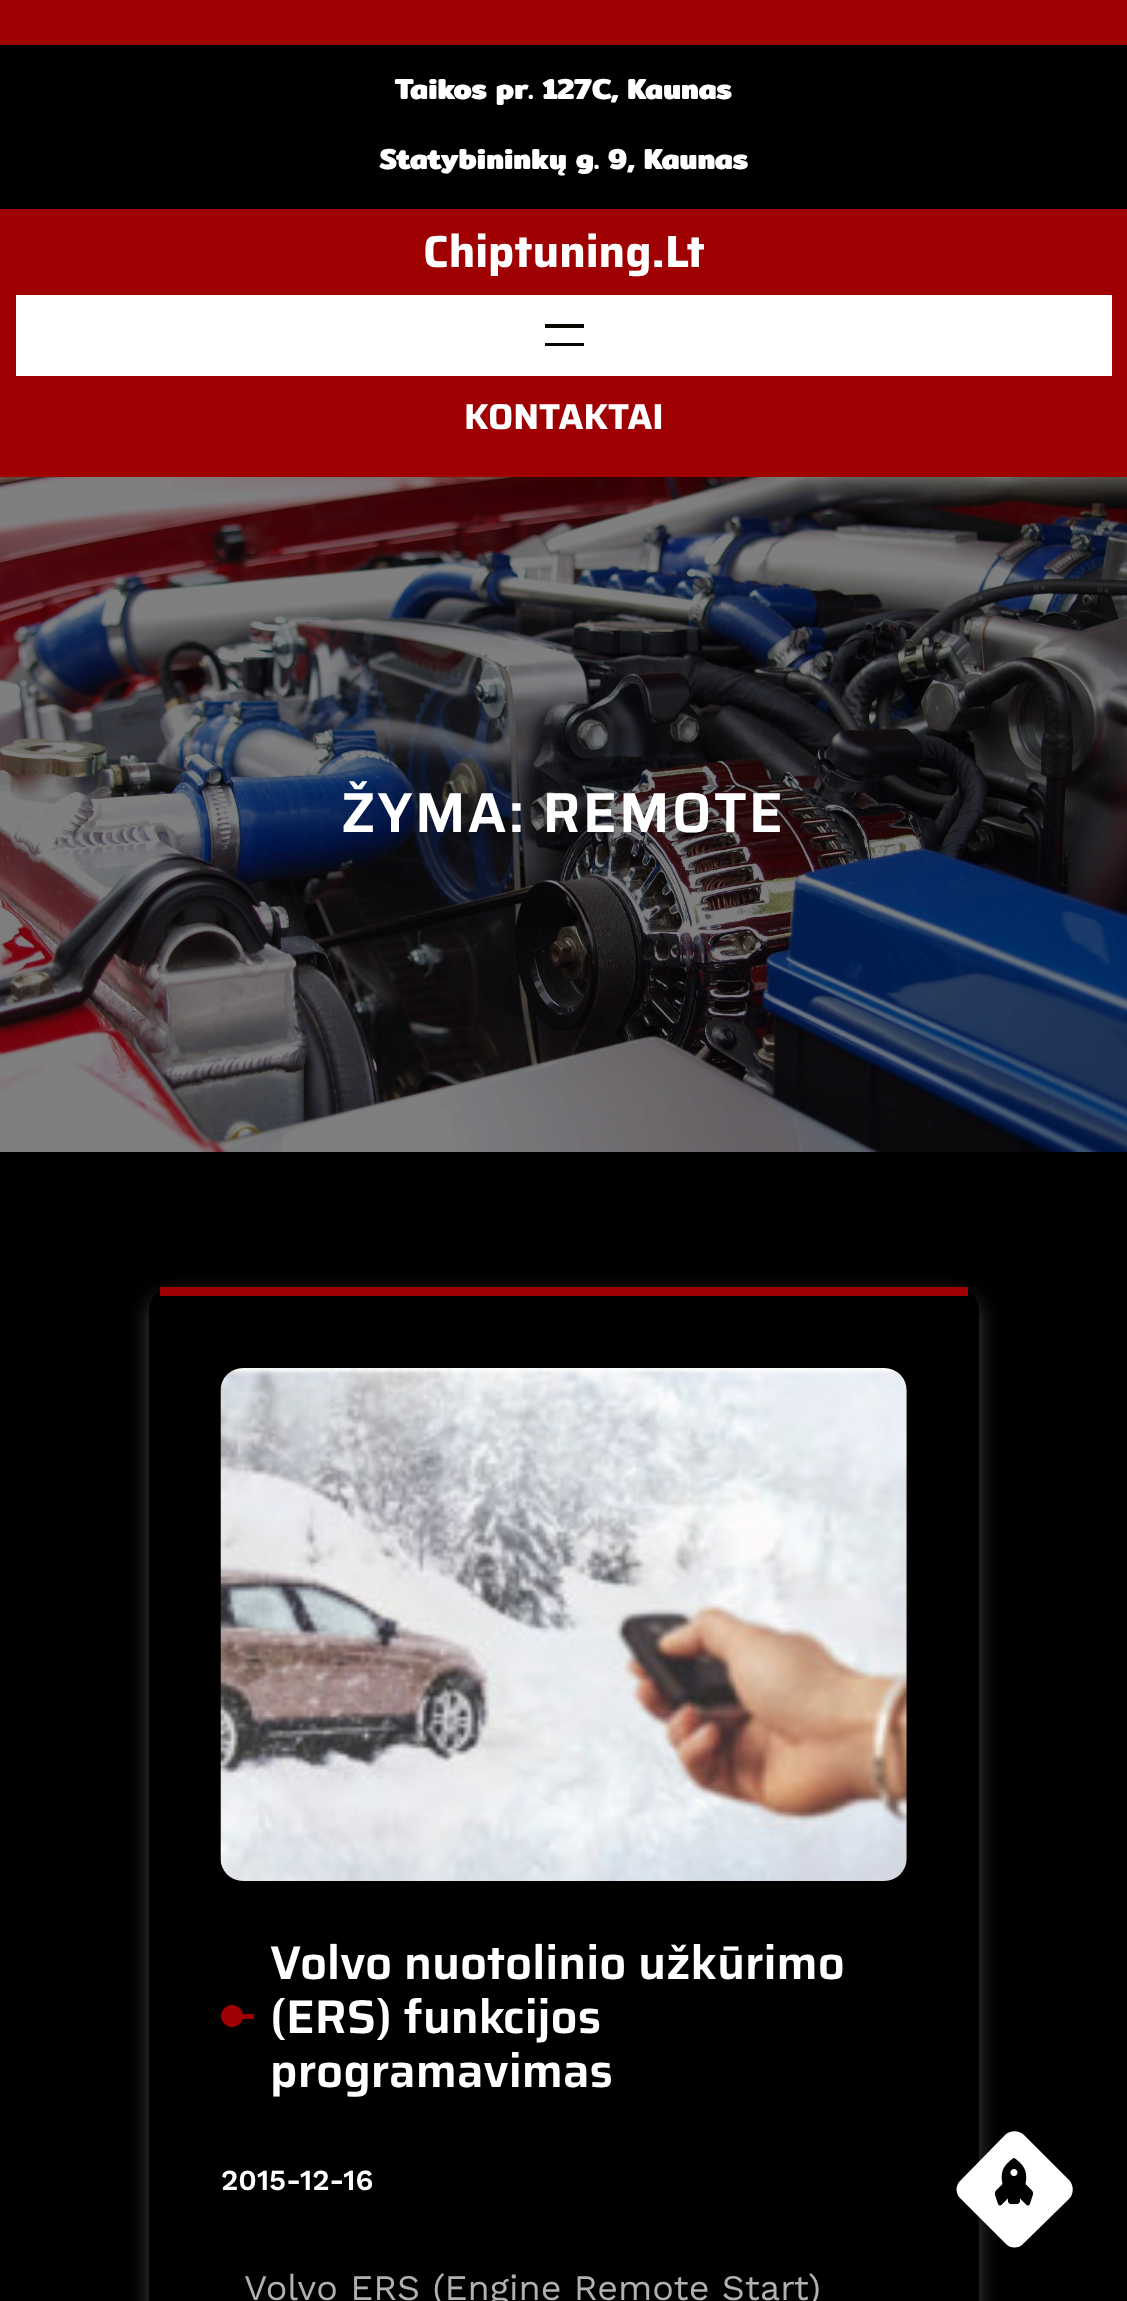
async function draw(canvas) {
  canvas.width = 1127
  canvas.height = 2301
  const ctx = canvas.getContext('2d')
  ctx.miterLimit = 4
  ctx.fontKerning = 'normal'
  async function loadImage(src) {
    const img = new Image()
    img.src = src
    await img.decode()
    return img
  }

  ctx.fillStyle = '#000'
  ctx.fillRect(0, 0, 1127, 2301)
  ctx.fillStyle = '#9f0102'
  ctx.fillRect(0, 0, 1127, 45)
  ctx.font = 'bold 29.25px Mitr'
  ctx.fillStyle = '#fff'
  ctx.fillText('Taikos pr. 127C, Kaunas', 395, 99)
  ctx.fillText('Statybininkų g. 9, Kaunas', 379, 169)
  ctx.fillStyle = '#9f0102'
  ctx.fillRect(0, 209, 1127, 16)
  ctx.fillRect(0, 225, 1127, 252)
  ctx.font = 'bold 45px Saira'
  ctx.fillStyle = '#fff'
  ctx.fillText('Chiptuning.Lt', 423, 267)
  ctx.fillRect(16, 295, 1096, 81)
  ctx.fillStyle = '#060600'
  ctx.fillRect(545, 324, 39, 4)
  ctx.fillRect(545, 343, 39, 3)
  ctx.font = 'bold 36px Saira'
  ctx.fillStyle = '#fff'
  ctx.fillText('KONTAKTAI', 464, 429)
  ctx.drawImage(await loadImage('image0.png'), 0, 477, 1127, 675)
  ctx.letterSpacing = '2.25px'
  ctx.font = '600 56.25px Saira'
  ctx.fillText('ŽYMA: REMOTE', 341, 832)
  ctx.fillStyle = '#3f4041'
  ctx.filter = 'blur(10px)'
  ctx.beginPath()
  ctx.roundRect(149, 1296, 830, 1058, 23)
  ctx.fill()
  ctx.filter = 'none'
  ctx.fillStyle = '#000'
  ctx.beginPath()
  ctx.roundRect(149, 1287, 830, 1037, 23)
  ctx.fill()
  ctx.fillStyle = '#9f0102'
  ctx.fillRect(160, 1287, 808, 9)
  ctx.drawImage(await loadImage('image1.png'), 220, 1368, 687, 513)
  ctx.fillRect(221, 2014, 33, 5)
  ctx.beginPath()
  ctx.arc(232, 2016, 11, 0, 2 * Math.PI)
  ctx.fill()
  ctx.letterSpacing = '0px'
  ctx.font = '600 47.25px Saira'
  ctx.fillStyle = '#fff'
  ctx.fillText('Volvo nuotolinio užkūrimo', 270, 1979)
  ctx.fillText('(ERS) funkcijos', 270, 2033)
  ctx.fillText('programavimas', 270, 2087)
  ctx.font = '600 29.25px Work Sans'
  ctx.fillText('2015-12-16', 221, 2190)
  ctx.font = '36px Work Sans'
  ctx.fillStyle = '#b3b0b0'
  ctx.fillText('Volvo ERS (Engine Remote Start)', 244, 2300)
  ctx.fillStyle = '#fff'
  ctx.beginPath()
  ctx.moveTo(961, 2180)
  ctx.lineTo(1005, 2135)
  ctx.bezierCurveTo(1010, 2130, 1019, 2130, 1024, 2135)
  ctx.lineTo(1069, 2180)
  ctx.bezierCurveTo(1074, 2185, 1074, 2194, 1069, 2199)
  ctx.lineTo(1024, 2243)
  ctx.bezierCurveTo(1019, 2249, 1010, 2249, 1005, 2243)
  ctx.lineTo(961, 2199)
  ctx.bezierCurveTo(955, 2194, 955, 2185, 961, 2180)
  ctx.closePath()
  ctx.fill()
  ctx.drawImage(await loadImage('image2.png'), 994, 2158, 40, 48)
}

draw(document.querySelector('canvas'))
